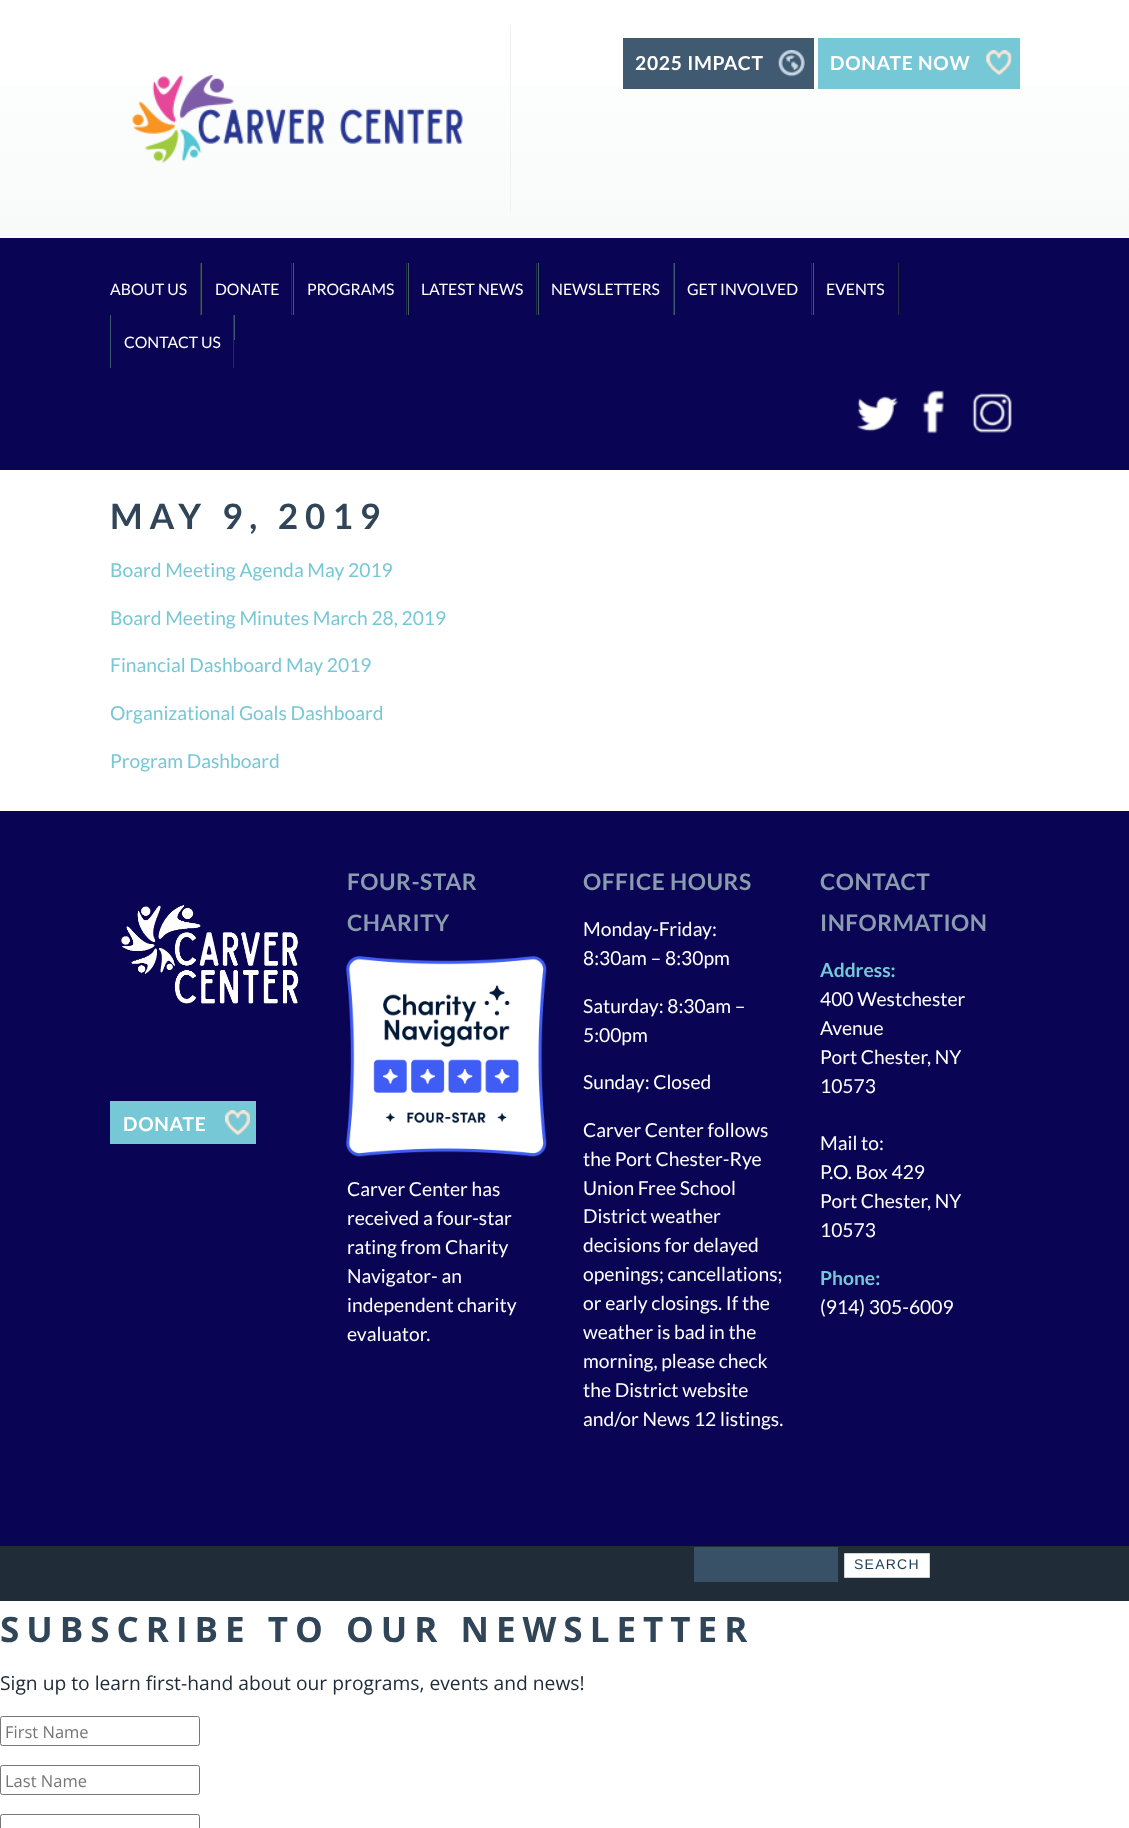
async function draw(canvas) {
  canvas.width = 1129
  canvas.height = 1828
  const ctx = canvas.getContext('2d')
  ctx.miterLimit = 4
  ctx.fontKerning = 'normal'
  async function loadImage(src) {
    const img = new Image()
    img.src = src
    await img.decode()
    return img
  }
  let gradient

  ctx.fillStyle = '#fff'
  ctx.fillRect(0, 0, 1129, 1828)
  gradient = ctx.createLinearGradient(565, 0, 565, 238)
  gradient.addColorStop(0, '#fff')
  gradient.addColorStop(1, '#f8fafa')
  ctx.fillStyle = gradient
  ctx.fillRect(0, 85, 1129, 153)
  ctx.fillStyle = '#f1f1f1'
  ctx.fillRect(510, 25, 1, 188)
  ctx.drawImage(await loadImage('image0.png'), 132, 74, 331, 89)
  ctx.fillStyle = '#405a72'
  ctx.fillRect(623, 38, 191, 51)
  ctx.drawImage(await loadImage('image1.png'), 778, 50, 27, 27)
  ctx.letterSpacing = '0.75px'
  ctx.font = 'bold 19.25px Lato'
  ctx.fillStyle = '#fff'
  ctx.fillText('2025 IMPACT', 635, 70)
  ctx.fillStyle = '#77c8d6'
  ctx.fillRect(818, 38, 202, 51)
  ctx.drawImage(await loadImage('image2.png'), 986, 50, 26, 25)
  ctx.fillStyle = '#fff'
  ctx.fillText('DONATE NOW', 830, 70)
  ctx.fillStyle = '#090554'
  ctx.fillRect(0, 238, 1129, 232)
  ctx.fillStyle = '#23313e'
  ctx.fillRect(200, 263, 1, 52)
  ctx.letterSpacing = '0px'
  ctx.font = '15.75px Lato'
  ctx.fillStyle = '#fff'
  ctx.fillText('ABOUT US', 110, 295)
  ctx.fillStyle = '#23313e'
  ctx.fillRect(291, 263, 1, 52)
  ctx.fillStyle = '#405a72'
  ctx.fillRect(201, 263, 1, 52)
  ctx.fillStyle = '#fff'
  ctx.fillText('DONATE', 215, 295)
  ctx.fillStyle = '#23313e'
  ctx.fillRect(406, 263, 1, 52)
  ctx.fillStyle = '#405a72'
  ctx.fillRect(293, 263, 1, 52)
  ctx.fillStyle = '#fff'
  ctx.fillText('PROGRAMS', 307, 295)
  ctx.fillStyle = '#23313e'
  ctx.fillRect(536, 263, 1, 52)
  ctx.fillStyle = '#405a72'
  ctx.fillRect(408, 263, 1, 52)
  ctx.fillStyle = '#fff'
  ctx.fillText('LATEST NEWS', 421, 295)
  ctx.fillStyle = '#23313e'
  ctx.fillRect(673, 263, 1, 52)
  ctx.fillStyle = '#405a72'
  ctx.fillRect(538, 263, 1, 52)
  ctx.fillStyle = '#fff'
  ctx.fillText('NEWSLETTERS', 551, 295)
  ctx.fillStyle = '#23313e'
  ctx.fillRect(811, 263, 1, 52)
  ctx.fillStyle = '#405a72'
  ctx.fillRect(674, 263, 1, 52)
  ctx.fillStyle = '#fff'
  ctx.fillText('GET INVOLVED', 687, 295)
  ctx.fillStyle = '#23313e'
  ctx.fillRect(898, 263, 1, 52)
  ctx.fillStyle = '#405a72'
  ctx.fillRect(813, 263, 1, 52)
  ctx.fillStyle = '#fff'
  ctx.fillText('EVENTS', 826, 295)
  ctx.fillStyle = '#405a72'
  ctx.fillRect(234, 315, 1, 25)
  ctx.fillStyle = '#23313e'
  ctx.fillRect(233, 315, 1, 53)
  ctx.fillStyle = '#405a72'
  ctx.fillRect(110, 315, 1, 53)
  ctx.fillStyle = '#fff'
  ctx.fillText('CONTACT US', 124, 348)
  ctx.drawImage(await loadImage('image3.png'), 857, 396, 41, 36)
  ctx.drawImage(await loadImage('image4.png'), 922, 390, 22, 44)
  ctx.drawImage(await loadImage('image5.png'), 972, 393, 40, 40)
  ctx.letterSpacing = '7px'
  ctx.font = 'bold 35px Lato'
  ctx.fillStyle = '#314558'
  ctx.fillText('MAY 9, 2019', 110, 529)
  ctx.letterSpacing = '0px'
  ctx.font = '19.25px Lato'
  ctx.fillStyle = '#77c8d6'
  ctx.fillText('Board Meeting Agenda May 2019', 110, 577)
  ctx.fillText('Board Meeting Minutes March 28, 2019', 110, 625)
  ctx.fillText('Financial Dashboard May 2019', 110, 672)
  ctx.fillText('Organizational Goals Dashboard', 110, 720)
  ctx.fillText('Program Dashboard', 110, 768)
  ctx.fillStyle = '#090554'
  ctx.fillRect(0, 811, 1129, 735)
  ctx.drawImage(await loadImage('image6.png'), 121, 905, 178, 99)
  ctx.fillStyle = '#77c8d6'
  ctx.fillRect(110, 1101, 146, 43)
  ctx.letterSpacing = '0.75px'
  ctx.font = 'bold 19.25px Lato'
  ctx.fillStyle = '#fff'
  ctx.fillText('DONATE', 123, 1131)
  ctx.drawImage(await loadImage('image7.png'), 225, 1110, 25, 25)
  ctx.letterSpacing = '0.5px'
  ctx.font = 'bold 22.75px Lato'
  ctx.fillStyle = '#8a9cae'
  ctx.fillText('FOUR-STAR', 347, 890)
  ctx.fillText('CHARITY', 347, 931)
  ctx.drawImage(await loadImage('image8.png'), 346, 956, 201, 201)
  ctx.letterSpacing = '0px'
  ctx.font = '19.25px Lato'
  ctx.fillStyle = '#fff'
  ctx.fillText('Carver Center has', 347, 1196)
  ctx.fillText('received a four-star', 347, 1225)
  ctx.fillText('rating from Charity', 347, 1254)
  ctx.fillText('Navigator- an', 347, 1283)
  ctx.fillText('independent charity', 347, 1312)
  ctx.fillText('evaluator.', 347, 1341)
  ctx.letterSpacing = '0.5px'
  ctx.font = 'bold 22.75px Lato'
  ctx.fillStyle = '#8a9cae'
  ctx.fillText('OFFICE HOURS', 583, 890)
  ctx.letterSpacing = '0px'
  ctx.font = '19.25px Lato'
  ctx.fillStyle = '#fff'
  ctx.fillText('Monday-Friday:', 583, 936)
  ctx.fillText('8:30am – 8:30pm', 583, 965)
  ctx.fillText('Saturday: 8:30am –', 583, 1013)
  ctx.fillText('5:00pm', 583, 1042)
  ctx.fillText('Sunday: Closed', 583, 1089)
  ctx.fillText('Carver Center follows', 583, 1137)
  ctx.fillText('the Port Chester-Rye', 583, 1166)
  ctx.fillText('Union Free School', 583, 1195)
  ctx.fillText('District weather', 583, 1223)
  ctx.fillText('decisions for delayed', 583, 1252)
  ctx.fillText('openings; cancellations;', 583, 1281)
  ctx.fillText('or early closings. If the', 583, 1310)
  ctx.fillText('weather is bad in the', 583, 1339)
  ctx.fillText('morning, please check', 583, 1368)
  ctx.fillText('the District website', 583, 1397)
  ctx.fillText('and/or News 12 listings.', 583, 1426)
  ctx.letterSpacing = '0.5px'
  ctx.font = 'bold 22.75px Lato'
  ctx.fillStyle = '#8a9cae'
  ctx.fillText('CONTACT', 820, 890)
  ctx.fillText('INFORMATION', 820, 931)
  ctx.letterSpacing = '0px'
  ctx.font = 'bold 19.25px Lato'
  ctx.fillStyle = '#77c8d6'
  ctx.fillText('Address:', 820, 977)
  ctx.font = '19.25px Lato'
  ctx.fillStyle = '#fff'
  ctx.fillText('400 Westchester', 820, 1006)
  ctx.fillText('Avenue', 820, 1035)
  ctx.fillText('Port Chester, NY', 820, 1064)
  ctx.fillText('10573', 820, 1093)
  ctx.fillText('Mail to:', 820, 1150)
  ctx.fillText('P.O. Box 429', 820, 1179)
  ctx.fillText('Port Chester, NY', 820, 1208)
  ctx.fillText('10573', 820, 1237)
  ctx.font = 'bold 19.25px Lato'
  ctx.fillStyle = '#77c8d6'
  ctx.fillText('Phone:', 820, 1285)
  ctx.font = '19.25px Lato'
  ctx.fillStyle = '#fff'
  ctx.fillText('(914) 305-6009', 820, 1314)
  ctx.fillStyle = '#202d39'
  ctx.fillRect(0, 1546, 1129, 55)
  ctx.fillStyle = '#395167'
  ctx.fillRect(694, 1547, 144, 35)
  ctx.fillStyle = '#fff'
  ctx.beginPath()
  ctx.rect(844.5, 1553.5, 85, 24)
  ctx.fill()
  ctx.strokeStyle = '#ccd5dc'
  ctx.stroke()
  ctx.letterSpacing = '1.25px'
  ctx.font = '14px Liberation Sans'
  ctx.fillStyle = '#1a3b54'
  ctx.fillText('SEARCH', 854, 1569)
  ctx.letterSpacing = '7px'
  ctx.font = 'bold 35px Open Sans'
  ctx.fillStyle = '#314558'
  ctx.fillText('SUBSCRIBE TO OUR NEWSLETTER', 0, 1642)
  ctx.letterSpacing = '0px'
  ctx.font = '19.25px Open Sans'
  ctx.fillStyle = '#202d39'
  ctx.fillText('Sign up to learn first-hand about our programs, events and news!', 0, 1690)
  ctx.beginPath()
  ctx.roundRect(0.5, 1716.5, 199, 29, 2)
  ctx.strokeStyle = '#767676'
  ctx.stroke()
  ctx.font = '16.5px Open Sans'
  ctx.fillStyle = '#757575'
  ctx.fillText('First Name', 5, 1738)
  ctx.beginPath()
  ctx.roundRect(0.5, 1765.5, 199, 29, 2)
  ctx.stroke()
  ctx.fillText('Last Name', 5, 1787)
  ctx.beginPath()
  ctx.roundRect(0.5, 1814.5, 199, 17, 2)
  ctx.stroke()
}

draw(document.querySelector('canvas'))
